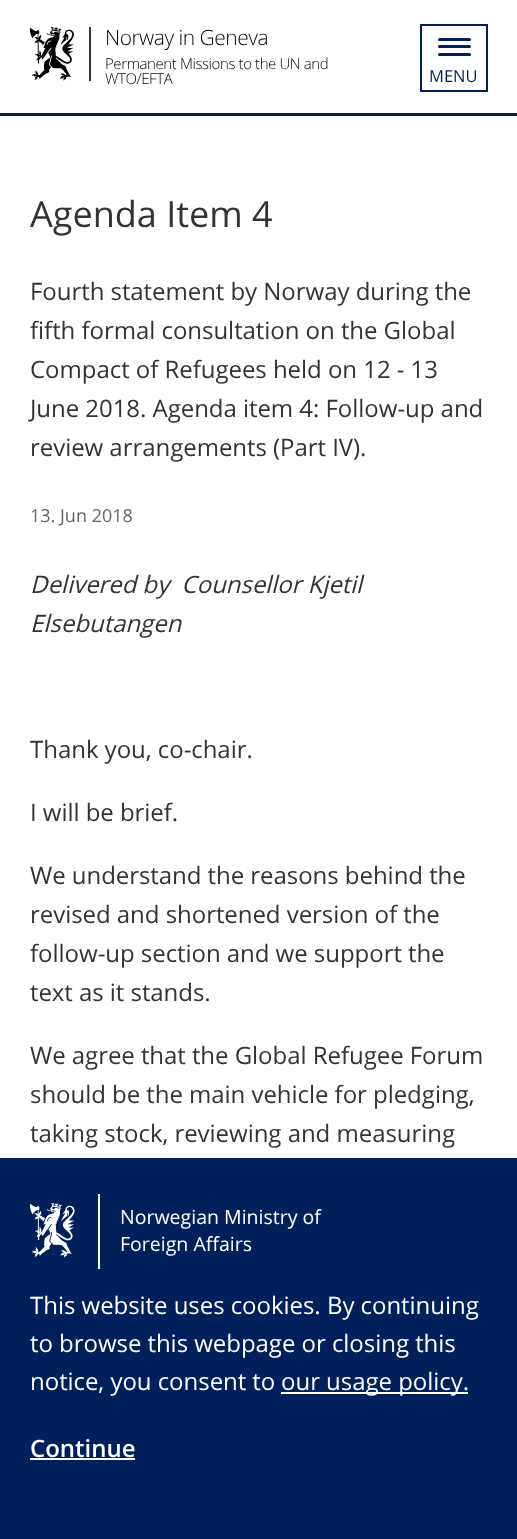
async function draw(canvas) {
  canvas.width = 517
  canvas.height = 1539
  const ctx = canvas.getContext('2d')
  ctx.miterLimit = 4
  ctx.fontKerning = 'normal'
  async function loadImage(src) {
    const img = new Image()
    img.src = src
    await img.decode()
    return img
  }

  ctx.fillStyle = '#fff'
  ctx.fillRect(0, 0, 517, 1539)
  ctx.drawImage(await loadImage('image0.png'), 30, 27, 44, 54)
  ctx.fillStyle = '#333'
  ctx.fillRect(89, 27, 2, 54)
  ctx.letterSpacing = '-0.5px'
  ctx.font = '300 21px Open Sans'
  ctx.fillStyle = '#000'
  ctx.fillText('Norway in Geneva', 105, 45)
  ctx.letterSpacing = '-0.4px'
  ctx.font = '300 15px Open Sans'
  ctx.fillText('Permanent Missions to the UN and', 105, 69)
  ctx.fillText('WTO/EFTA', 105, 84)
  ctx.strokeStyle = '#00205b'
  ctx.lineWidth = 2
  ctx.strokeRect(421, 25, 66, 66)
  ctx.fillStyle = '#00205b'
  ctx.beginPath()
  ctx.roundRect(438, 38, 33, 3, 1.5)
  ctx.fill()
  ctx.beginPath()
  ctx.roundRect(438, 45, 33, 3, 1.5)
  ctx.fill()
  ctx.beginPath()
  ctx.roundRect(438, 53, 33, 3, 1.5)
  ctx.fill()
  ctx.letterSpacing = '0px'
  ctx.font = '16.5px Open Sans'
  ctx.fillText('MENU', 429, 82)
  ctx.fillRect(0, 113, 517, 3)
  ctx.font = '36px Open Sans'
  ctx.fillStyle = '#333'
  ctx.fillText('Agenda Item 4', 30, 227)
  ctx.letterSpacing = '-0.05px'
  ctx.font = '24px Open Sans'
  ctx.fillText('Fourth statement by Norway during the', 30, 300)
  ctx.fillText('fifth formal consultation on the Global', 30, 339)
  ctx.fillText('Compact of Refugees held on 12 - 13', 30, 378)
  ctx.fillText('June 2018. Agenda item 4: Follow-up and', 30, 417)
  ctx.fillText('review arrangements (Part IV).', 30, 456)
  ctx.letterSpacing = '0px'
  ctx.font = '18px Open Sans'
  ctx.fillStyle = '#656565'
  ctx.fillText('13. Jun 2018', 30, 522)
  ctx.letterSpacing = '-0.05px'
  ctx.font = 'italic 24px Open Sans'
  ctx.fillStyle = '#333'
  ctx.fillText('Delivered by  Counsellor Kjetil', 30, 593)
  ctx.fillText('Elsebutangen', 30, 632)
  ctx.font = '24px Open Sans'
  ctx.fillText('Thank you, co-chair.', 30, 758)
  ctx.fillText('I will be brief.', 30, 821)
  ctx.fillText('We understand the reasons behind the', 30, 884)
  ctx.fillText('revised and shortened version of the', 30, 923)
  ctx.fillText('follow-up section and we support the', 30, 962)
  ctx.fillText('text as it stands.', 30, 1001)
  ctx.fillText('We agree that the Global Refugee Forum', 30, 1064)
  ctx.fillText('should be the main vehicle for pledging,', 30, 1103)
  ctx.fillText('taking stock, reviewing and measuring', 30, 1142)
  ctx.fillStyle = '#00205b'
  ctx.fillRect(0, 1158, 517, 381)
  ctx.drawImage(await loadImage('image1.png'), 30, 1203, 45, 55)
  ctx.fillStyle = '#fff'
  ctx.fillRect(98, 1194, 2, 75)
  ctx.letterSpacing = '0px'
  ctx.font = '19.5px Open Sans'
  ctx.fillText('Norwegian Ministry of', 120, 1224)
  ctx.fillText('Foreign Affairs', 120, 1251)
  ctx.letterSpacing = '-0.05px'
  ctx.font = '24px Open Sans'
  ctx.fillText('This website uses cookies. By continuing', 30, 1314)
  ctx.fillText('to browse this webpage or closing this', 30, 1352)
  ctx.fillText('notice, you consent to', 30, 1390)
  ctx.fillRect(281, 1392, 187, 2)
  ctx.fillText('our usage policy.', 281, 1390)
  ctx.letterSpacing = '0px'
  ctx.font = '600 24px Open Sans'
  ctx.fillText('Continue', 30, 1457)
  ctx.fillRect(30, 1458, 105, 2)
}

draw(document.querySelector('canvas'))
